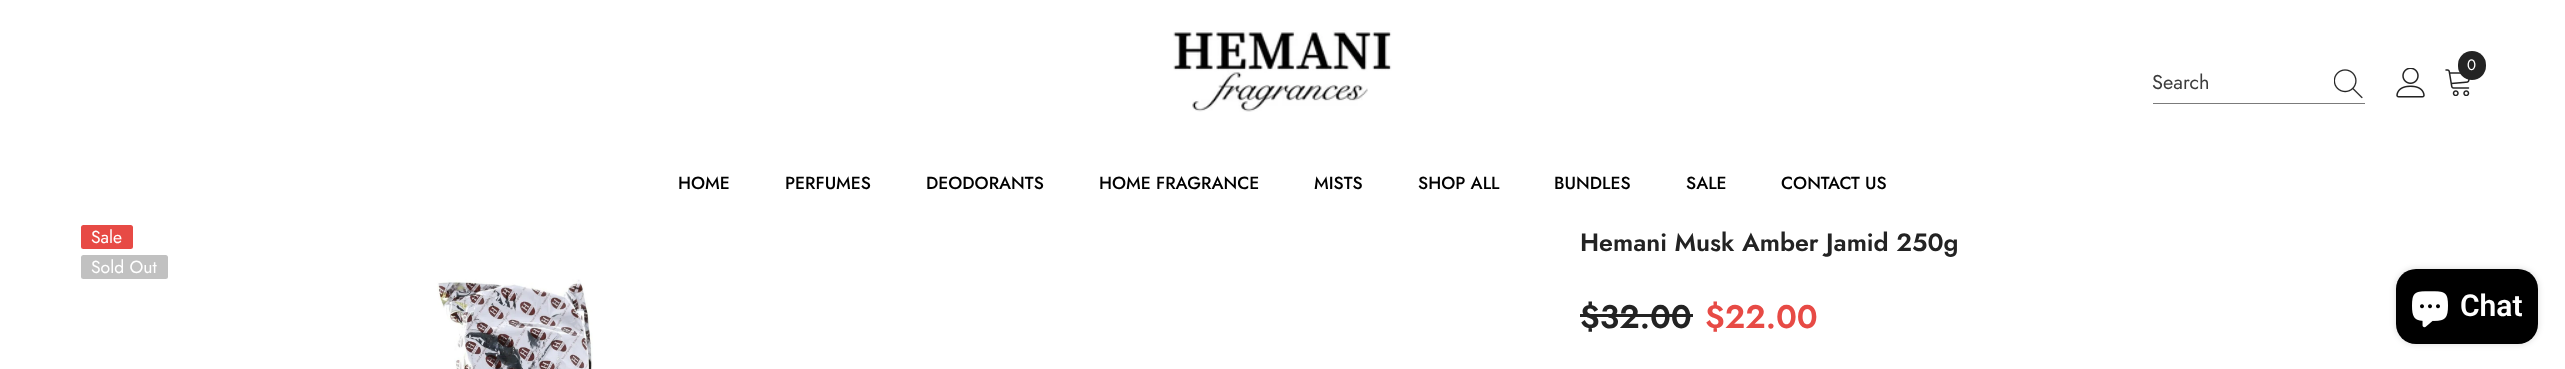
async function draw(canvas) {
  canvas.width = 2565
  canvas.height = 369
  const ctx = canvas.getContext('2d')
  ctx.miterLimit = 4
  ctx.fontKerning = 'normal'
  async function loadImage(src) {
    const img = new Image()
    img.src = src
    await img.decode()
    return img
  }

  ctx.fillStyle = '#fff'
  ctx.fillRect(0, 0, 2565, 369)
  ctx.drawImage(await loadImage('image0.png'), 1173, 30, 219, 82)
  ctx.drawImage(await loadImage('image1.png'), 2445, 69, 25, 27)
  ctx.fillStyle = '#232323'
  ctx.beginPath()
  ctx.roundRect(2458, 51, 28, 29, 14)
  ctx.fill()
  ctx.font = '15px Jost'
  ctx.fillStyle = '#fff'
  ctx.fillText('0', 2467, 70)
  ctx.drawImage(await loadImage('image2.png'), 2396, 68, 29, 30)
  ctx.fillStyle = '#7b7b7b'
  ctx.fillRect(2153, 103, 212, 1)
  ctx.font = '20px Jost'
  ctx.fillStyle = '#3c3c3c'
  ctx.fillText('Search', 2152, 89)
  ctx.drawImage(await loadImage('image3.png'), 2334, 69, 29, 30)
  ctx.font = '500 17.5px Jost'
  ctx.fillStyle = '#000'
  ctx.fillText('HOME', 678, 189)
  ctx.fillText('PERFUMES', 785, 189)
  ctx.fillText('DEODORANTS', 926, 189)
  ctx.fillText('HOME FRAGRANCE', 1099, 189)
  ctx.fillText('MISTS', 1314, 189)
  ctx.fillText('SHOP ALL', 1418, 189)
  ctx.fillText('BUNDLES', 1554, 189)
  ctx.fillText('SALE', 1686, 189)
  ctx.fillText('CONTACT US', 1781, 189)
  ctx.fillStyle = '#e74a45'
  ctx.beginPath()
  ctx.roundRect(81, 225, 52, 24, 2.5)
  ctx.fill()
  ctx.font = '17.5px Jost'
  ctx.fillStyle = '#fff'
  ctx.fillText('Sale', 91, 243)
  ctx.fillStyle = '#c1c1c1'
  ctx.beginPath()
  ctx.roundRect(81, 255, 87, 24, 2.5)
  ctx.fill()
  ctx.fillStyle = '#fff'
  ctx.fillText('Sold Out', 91, 273)
  ctx.drawImage(await loadImage('image4.png'), 437, 279, 156, 90)
  ctx.font = '600 25px Jost'
  ctx.fillStyle = '#232323'
  ctx.fillText('Hemani Musk Amber Jamid 250g', 1580, 251)
  ctx.font = '600 32.5px Jost'
  ctx.fillText('$32.00', 1580, 328)
  ctx.fillRect(1580, 314, 113, 3)
  ctx.fillStyle = '#e74a45'
  ctx.fillText('$22.00', 1705, 328)
  ctx.fillStyle = '#00000026'
  ctx.filter = 'blur(3px)'
  ctx.beginPath()
  ctx.roundRect(2396, 269, 142, 75, 20)
  ctx.fill()
  ctx.filter = 'none'
  ctx.fillStyle = '#000'
  ctx.beginPath()
  ctx.roundRect(2396, 269, 142, 75, 20)
  ctx.fill()
  ctx.drawImage(await loadImage('image5.png'), 2412, 291, 36, 37)
  ctx.font = '600 30px Roboto'
  ctx.fillStyle = '#fff'
  ctx.fillText('Chat', 2460, 316)
}

draw(document.querySelector('canvas'))
